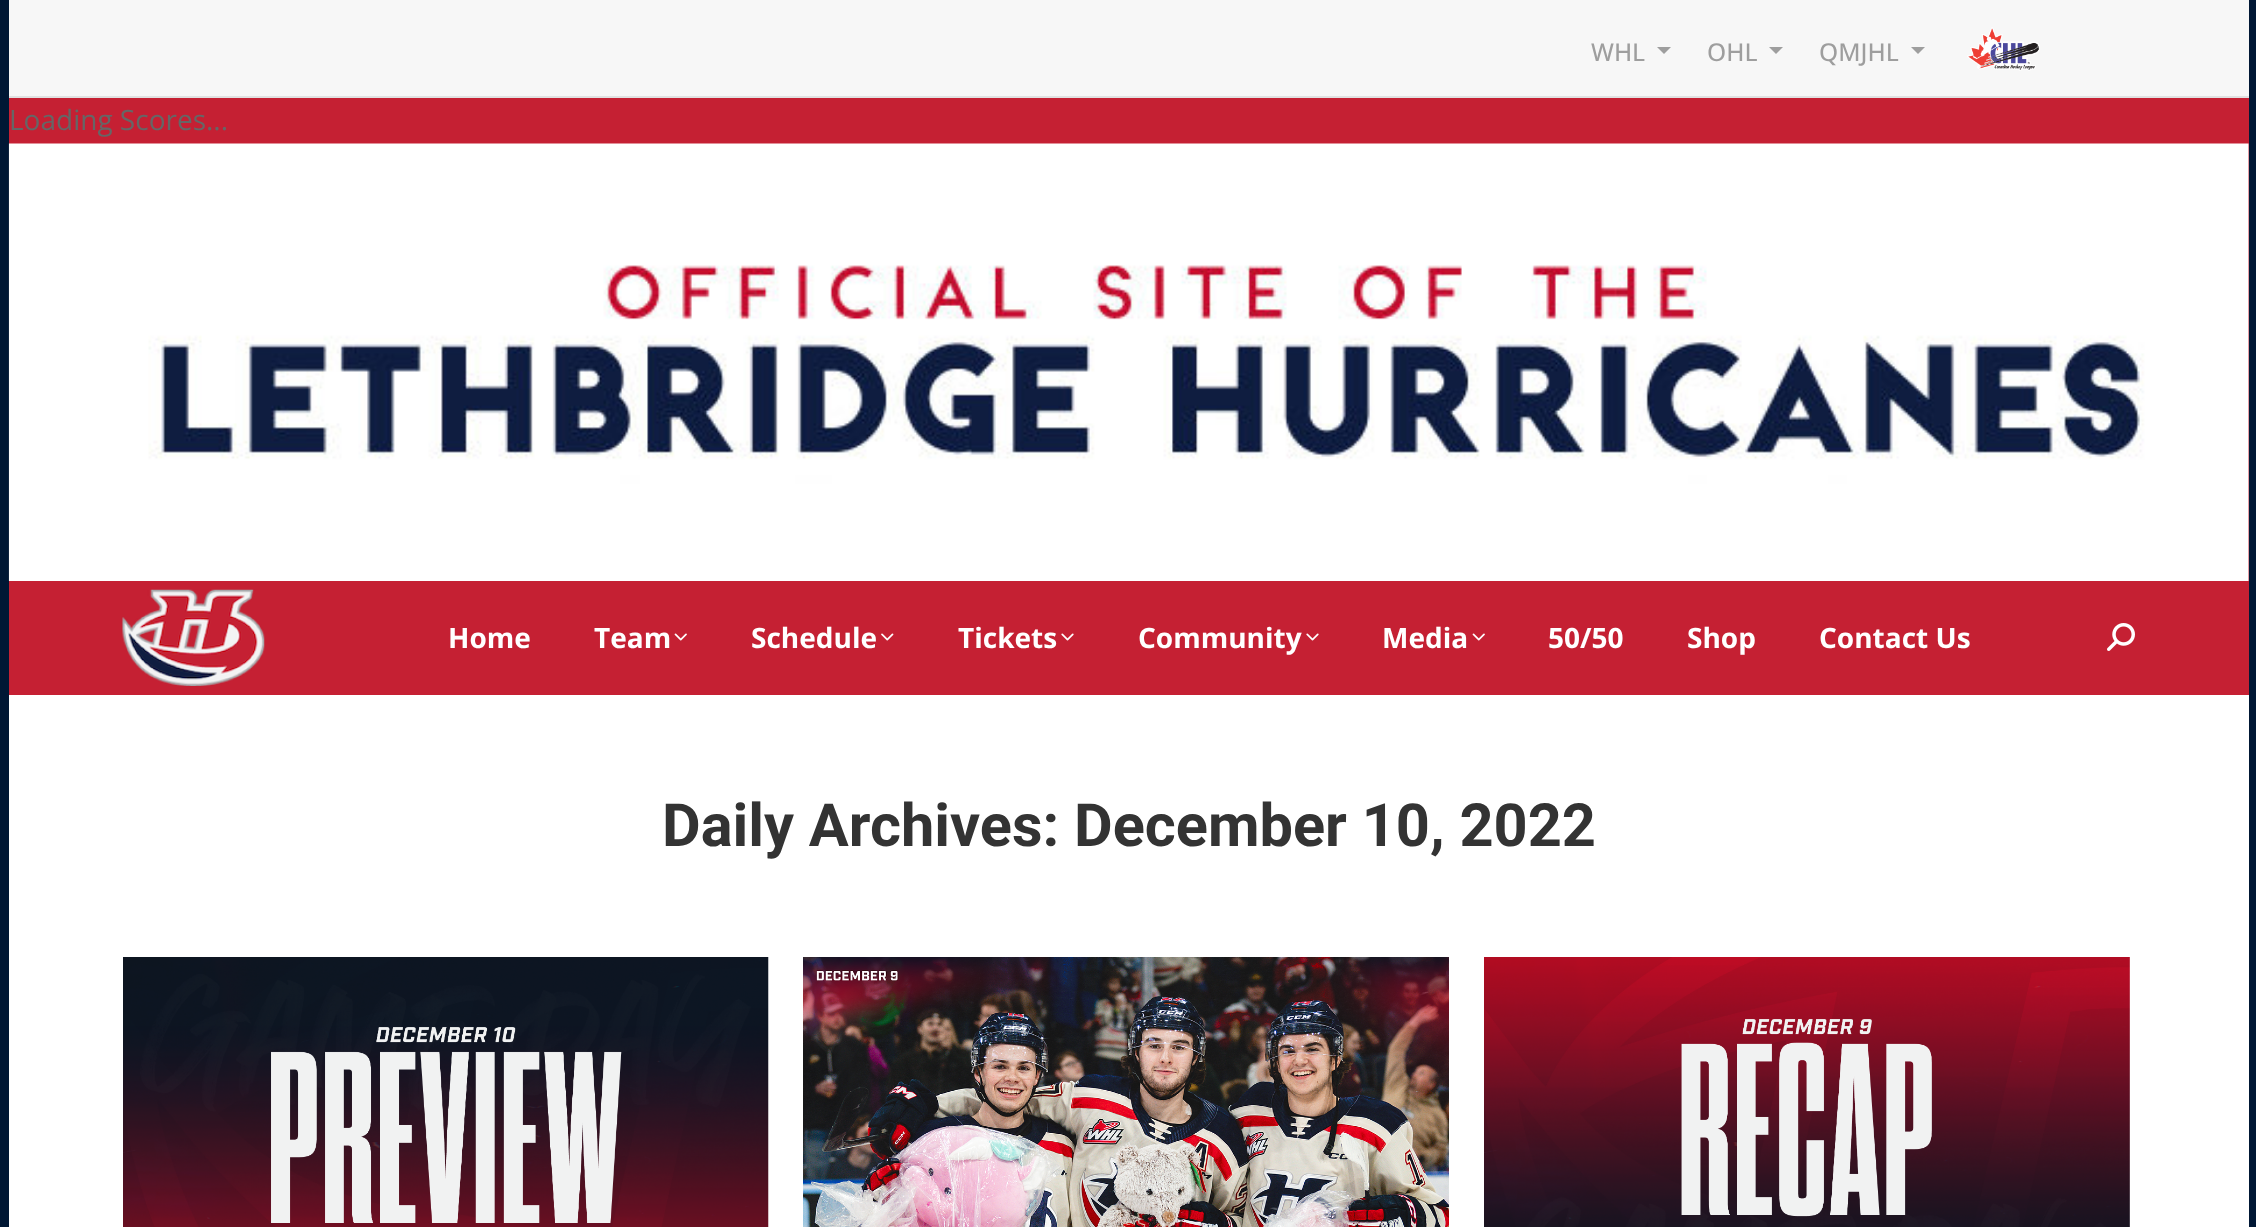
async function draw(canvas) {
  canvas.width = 2256
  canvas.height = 1227
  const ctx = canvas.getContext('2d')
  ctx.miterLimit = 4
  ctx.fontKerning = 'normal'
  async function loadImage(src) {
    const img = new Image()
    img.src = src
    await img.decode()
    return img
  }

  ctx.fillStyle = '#001734'
  ctx.fillRect(0, 0, 2256, 1227)
  ctx.fillStyle = '#fff'
  ctx.fillRect(9, 695, 2240, 532)
  ctx.fillStyle = '#c52033'
  ctx.fillRect(9, 98, 2240, 597)
  ctx.fillStyle = '#f7f7f7'
  ctx.fillRect(9, 0, 2240, 96)
  ctx.font = '500 24.5px Open Sans'
  ctx.fillStyle = '#9e9e9e'
  ctx.fillText('WHL', 1591, 61)
  ctx.beginPath()
  ctx.moveTo(1657, 47)
  ctx.lineTo(1671, 47)
  ctx.lineTo(1664, 54)
  ctx.closePath()
  ctx.fill()
  ctx.fillText('OHL', 1707, 61)
  ctx.beginPath()
  ctx.moveTo(1769, 47)
  ctx.lineTo(1783, 47)
  ctx.lineTo(1776, 54)
  ctx.closePath()
  ctx.fill()
  ctx.fillText('QMJHL', 1819, 61)
  ctx.beginPath()
  ctx.moveTo(1911, 47)
  ctx.lineTo(1925, 47)
  ctx.lineTo(1918, 54)
  ctx.closePath()
  ctx.fill()
  ctx.drawImage(await loadImage('image0.png'), 1967, 27, 73, 44)
  ctx.fillStyle = '#e1e1e1'
  ctx.fillRect(9, 96, 2240, 2)
  ctx.font = '28px Open Sans'
  ctx.fillStyle = '#666'
  ctx.fillText('Loading Scores...', 9, 130)
  ctx.drawImage(await loadImage('image1.png'), 8, 143, 2241, 438)
  ctx.drawImage(await loadImage('image2.png'), 122, 589, 143, 97)
  ctx.font = 'bold 28px Open Sans'
  ctx.fillStyle = '#fff'
  ctx.fillText('Home', 448, 648)
  ctx.fillText('Team', 594, 648)
  ctx.drawImage(await loadImage('image3.png'), 674, 633, 13, 8)
  ctx.fillText('Schedule', 751, 648)
  ctx.drawImage(await loadImage('image4.png'), 881, 633, 13, 8)
  ctx.fillText('Tickets', 958, 648)
  ctx.drawImage(await loadImage('image5.png'), 1061, 633, 13, 8)
  ctx.fillText('Community', 1138, 648)
  ctx.drawImage(await loadImage('image5.png'), 1306, 633, 13, 8)
  ctx.fillText('Media', 1382, 648)
  ctx.drawImage(await loadImage('image3.png'), 1472, 633, 13, 8)
  ctx.fillText('50/50', 1548, 648)
  ctx.fillText('Shop', 1687, 648)
  ctx.fillText('Contact Us', 1819, 648)
  ctx.drawImage(await loadImage('image6.png'), 2107, 623, 28, 28)
  ctx.font = 'bold 59.5px Roboto'
  ctx.fillStyle = '#333'
  ctx.fillText('Daily Archives: December 10, 2022', 662, 846)
  ctx.drawImage(await loadImage('image7.png'), 123, 957, 646, 270)
  ctx.drawImage(await loadImage('image8.png'), 803, 957, 646, 270)
  ctx.drawImage(await loadImage('image9.png'), 1484, 957, 646, 270)
}

draw(document.querySelector('canvas'))
